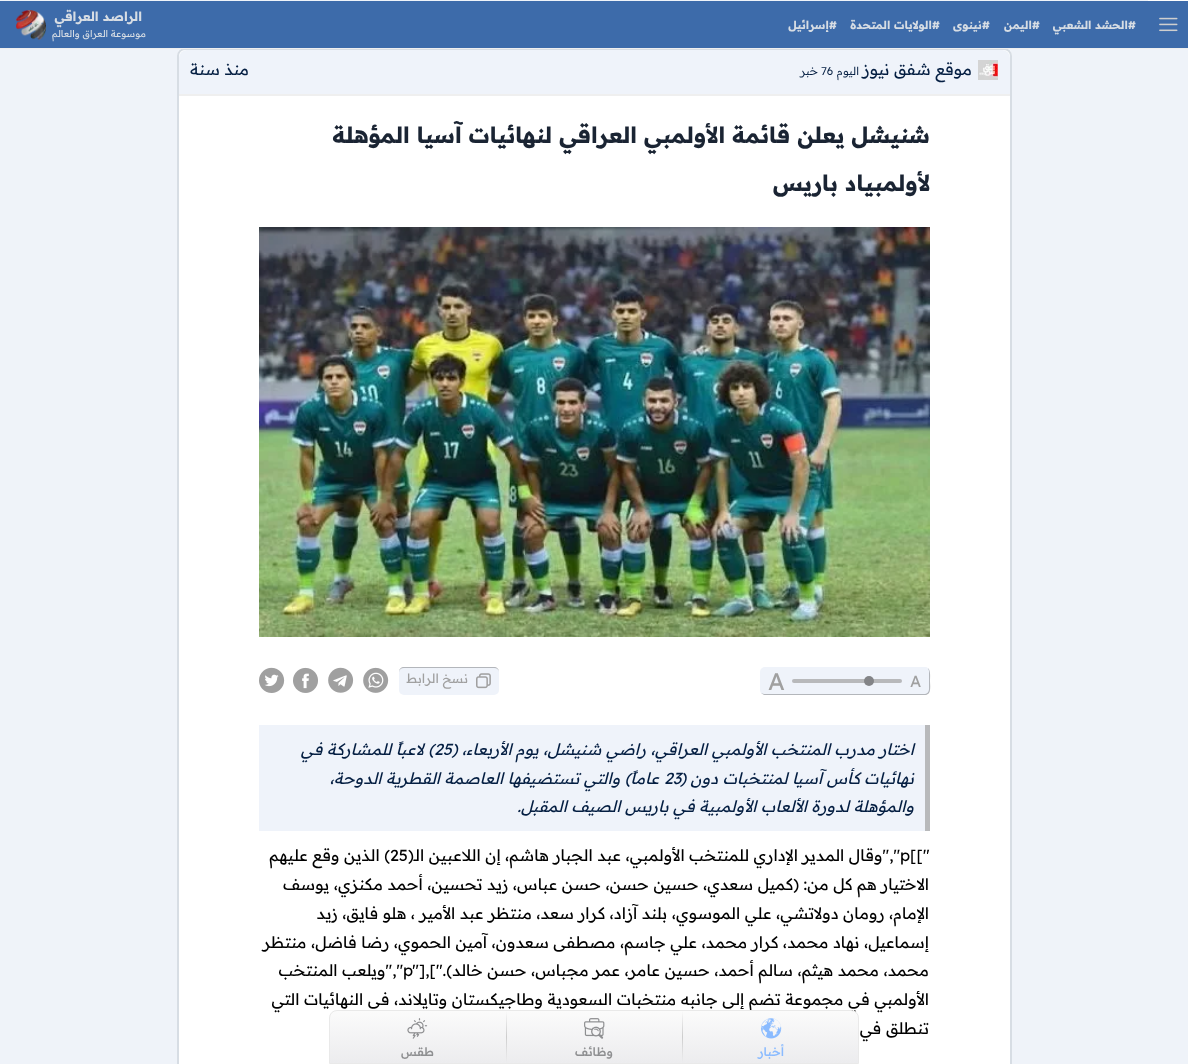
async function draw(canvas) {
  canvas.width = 1188
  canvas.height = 1064
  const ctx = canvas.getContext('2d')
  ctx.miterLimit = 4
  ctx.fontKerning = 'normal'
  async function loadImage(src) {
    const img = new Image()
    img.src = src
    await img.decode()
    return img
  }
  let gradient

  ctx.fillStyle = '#eff3f9'
  ctx.fillRect(0, 0, 1188, 1064)
  ctx.fillStyle = '#fefefe'
  ctx.fillRect(1148, 0, 40, 1)
  ctx.fillStyle = '#3d6baa'
  ctx.fillRect(0, 1, 1188, 47)
  ctx.fillStyle = '#fff'
  ctx.beginPath()
  ctx.roundRect(177, 48, 835, 1016, [8, 8, 0, 0])
  ctx.fill()
  ctx.beginPath()
  ctx.roundRect(178, 49, 833, 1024, 7)
  ctx.strokeStyle = '#d7dde4'
  ctx.lineWidth = 2
  ctx.stroke()
  ctx.fillStyle = '#efefef'
  ctx.fillRect(0, 48, 1188, 1)
  ctx.drawImage(await loadImage('image0.png'), 1159, 17, 19, 15)
  ctx.direction = 'rtl'
  ctx.font = 'bold 11.25px Readex Pro'
  ctx.fillStyle = '#d7dde4'
  ctx.fillText('#الحشد الشعبي', 1136, 29)
  ctx.fillText('#اليمن', 1040, 29)
  ctx.fillText('#نينوى', 990, 29)
  ctx.fillText('#الولايات المتحدة', 940, 29)
  ctx.fillText('#إسرائيل', 837, 29)
  ctx.font = 'bold 12.75px Readex Pro'
  ctx.fillText('الراصد العراقي', 142, 21)
  ctx.drawImage(await loadImage('image1.png'), 16, 10, 30, 30)
  ctx.font = '9.5px Readex Pro'
  ctx.fillText('موسوعة العراق والعالم', 146, 37)
  ctx.fillStyle = '#eff3fa'
  ctx.beginPath()
  ctx.roundRect(179, 50, 831, 46, [8, 8, 0, 0])
  ctx.fill()
  ctx.fillStyle = '#efefef'
  ctx.fillRect(179, 94, 831, 2)
  ctx.drawImage(await loadImage('image2.png'), 978, 60, 20, 20)
  ctx.font = '16px Readex Pro'
  ctx.fillStyle = '#041e42'
  ctx.fillText('موقع شفق نيوز', 972, 75)
  ctx.font = '300 11.25px Readex Pro'
  ctx.fillText('اليوم', 859, 75)
  ctx.direction = 'ltr'
  ctx.fillText('76', 821, 75)
  ctx.direction = 'rtl'
  ctx.fillText('خبر', 818, 75)
  ctx.font = '16px Readex Pro'
  ctx.fillText('منذ سنة', 249, 75)
  ctx.font = 'bold 22.4px Readex Pro'
  ctx.fillStyle = '#1a2433'
  ctx.fillText('شنيشل يعلن قائمة الأولمبي العراقي لنهائيات آسيا المؤهلة', 930, 143)
  ctx.fillText('لأولمبياد باريس', 930, 191)
  ctx.drawImage(await loadImage('image3.png'), 259, 227, 671, 410)
  ctx.fillStyle = '#eff3fa'
  ctx.beginPath()
  ctx.roundRect(760, 667, 170, 28, 5)
  ctx.fill()
  ctx.fillStyle = '#00000040'
  ctx.beginPath()
  ctx.moveTo(761, 693)
  ctx.lineTo(764, 695)
  ctx.lineTo(925, 695)
  ctx.bezierCurveTo(932, 695, 930, 685, 930, 681)
  ctx.bezierCurveTo(930, 678, 931, 671, 928, 668)
  ctx.lineTo(929, 671)
  ctx.lineTo(929, 689)
  ctx.bezierCurveTo(929, 692, 927, 694, 924, 694)
  ctx.lineTo(764, 694)
  ctx.closePath()
  ctx.fill()
  ctx.direction = 'ltr'
  ctx.font = '16px Readex Pro'
  ctx.fillStyle = '#a0a0a0'
  ctx.fillText('A', 910, 687)
  ctx.fillStyle = '#b8b9bb'
  ctx.beginPath()
  ctx.roundRect(792, 679, 110, 4, 2)
  ctx.fill()
  ctx.fillStyle = '#838487'
  ctx.beginPath()
  ctx.arc(869, 681, 5, 0, 2 * Math.PI)
  ctx.fill()
  ctx.font = '24px Readex Pro'
  ctx.fillStyle = '#a0a0a0'
  ctx.fillText('A', 768, 690)
  ctx.fillStyle = '#eff3fa'
  ctx.beginPath()
  ctx.roundRect(399, 667, 100, 28, 5)
  ctx.fill()
  ctx.fillStyle = '#00000040'
  ctx.beginPath()
  ctx.moveTo(404, 668)
  ctx.lineTo(494, 668)
  ctx.bezierCurveTo(497, 668, 499, 670, 499, 672)
  ctx.bezierCurveTo(499, 669, 497, 667, 494, 667)
  ctx.lineTo(404, 667)
  ctx.bezierCurveTo(401, 667, 399, 669, 399, 672)
  ctx.bezierCurveTo(399, 670, 401, 668, 404, 668)
  ctx.closePath()
  ctx.fill()
  ctx.drawImage(await loadImage('image4.png'), 476, 673, 15, 16)
  ctx.direction = 'rtl'
  ctx.font = '12.75px Readex Pro'
  ctx.fillStyle = '#a0a0a0'
  ctx.fillText('نسخ الرابط', 468, 683)
  ctx.drawImage(await loadImage('image5.png'), 363, 667, 26, 26)
  ctx.drawImage(await loadImage('image6.png'), 328, 667, 26, 26)
  ctx.drawImage(await loadImage('image7.png'), 293, 667, 25, 26)
  ctx.drawImage(await loadImage('image8.png'), 259, 667, 26, 26)
  ctx.fillStyle = '#eff3fa'
  ctx.fillRect(259, 725, 666, 106)
  ctx.fillStyle = '#b8b9bb'
  ctx.fillRect(925, 725, 5, 106)
  ctx.font = 'italic 16px Readex Pro'
  ctx.fillStyle = '#041e42'
  ctx.fillText('اختار مدرب المنتخب الأولمبي العراقي، راضي شنيشل، يوم الأربعاء، (', 914, 755)
  ctx.direction = 'ltr'
  ctx.fillText('25', 434, 755)
  ctx.direction = 'rtl'
  ctx.fillText(') لاعباً للمشاركة في', 434, 755)
  ctx.fillText('نهائيات كأس آسيا لمنتخبات دون (', 914, 784)
  ctx.direction = 'ltr'
  ctx.fillText('23', 664, 784)
  ctx.direction = 'rtl'
  ctx.fillText('عاماً) والتي تستضيفها العاصمة القطرية الدوحة،', 659, 784)
  ctx.fillText('والمؤهلة لدورة الألعاب الأولمبية في باريس الصيف المقبل.', 914, 812)
  ctx.direction = 'ltr'
  ctx.font = '16px Readex Pro'
  ctx.fillStyle = '#000'
  ctx.fillText('p[["', 900, 861)
  ctx.direction = 'rtl'
  ctx.fillText('","وقال المدير الإداري للمنتخب الأولمبي، عبد الجبار هاشم، إن اللاعبين الـ(', 900, 861)
  ctx.direction = 'ltr'
  ctx.fillText('25', 390, 861)
  ctx.direction = 'rtl'
  ctx.fillText(') الذين وقع عليهم', 390, 861)
  ctx.fillText('الاختيار هم كل من: (كميل سعدي، حسين حسن، حسن عباس، زيد تحسين، أحمد مكنزي، يوسف', 929, 890)
  ctx.fillText('الإمام، رومان دولاتشي، علي الموسوي، بلند آزاد، كرار', 929, 919)
  ctx.fillText('سعد، منتظر عبد الأمير ، هلو فايق، زيد', 574, 919)
  ctx.fillText('إسماعيل، نهاد محمد، كرار محمد، علي جاسم، مصطفى سعدون، آمين الحموي، رضا فاضل، منتظر', 929, 948)
  ctx.fillText('محمد، محمد هيثم، سالم أحمد، حسين عامر، عمر مجباس، حسن خالد)."],["', 929, 976)
  ctx.direction = 'ltr'
  ctx.fillText('p', 403, 976)
  ctx.direction = 'rtl'
  ctx.fillText('","ويلعب المنتخب', 403, 976)
  ctx.fillText('الأولمبي في مجموعة تضم إلى جانبه منتخبات السعودية وطاجيكستان وتايلاند، في النهائيات التي', 929, 1005)
  ctx.fillText('تنطلق في', 929, 1034)
  ctx.save()
  ctx.beginPath()
  ctx.roundRect(329, 1010, 530, 54, [8, 8, 0, 0])
  ctx.clip()
  gradient = ctx.createLinearGradient(594, 1011, 594, 1063)
  gradient.addColorStop(0, '#fbfbfb')
  gradient.addColorStop(1, '#ececee')
  ctx.fillStyle = gradient
  ctx.fillRect(329, 1011, 530, 52)
  ctx.restore()
  ctx.beginPath()
  ctx.roundRect(329.5, 1010.5, 529, 53, [7.5, 7.5, 0, 0])
  ctx.strokeStyle = '#e9e9e9'
  ctx.lineWidth = 1
  ctx.stroke()
  ctx.drawImage(await loadImage('image9.png'), 761, 1018, 21, 21)
  ctx.font = '500 12px Readex Pro'
  ctx.fillStyle = '#8abbff'
  ctx.fillText('أخبار', 784, 1056)
  gradient = ctx.createLinearGradient(683, 1011, 683, 1063)
  gradient.addColorStop(0, '#cdcdcd00')
  gradient.addColorStop(0.5, '#cdcdcd')
  gradient.addColorStop(1, '#cdcdcd00')
  ctx.fillStyle = gradient
  ctx.fillRect(682, 1011, 1, 52)
  ctx.drawImage(await loadImage('image10.png'), 584, 1018, 21, 21)
  ctx.fillStyle = '#8e8f91'
  ctx.fillText('وظائف', 613, 1056)
  gradient = ctx.createLinearGradient(507, 1011, 507, 1063)
  gradient.addColorStop(0, '#cdcdcd00')
  gradient.addColorStop(0.5, '#cdcdcd')
  gradient.addColorStop(1, '#cdcdcd00')
  ctx.fillStyle = gradient
  ctx.fillRect(506, 1011, 1, 52)
  ctx.drawImage(await loadImage('image11.png'), 407, 1018, 21, 21)
  ctx.fillStyle = '#8e8f91'
  ctx.fillText('طقس', 434, 1056)
}

draw(document.querySelector('canvas'))
